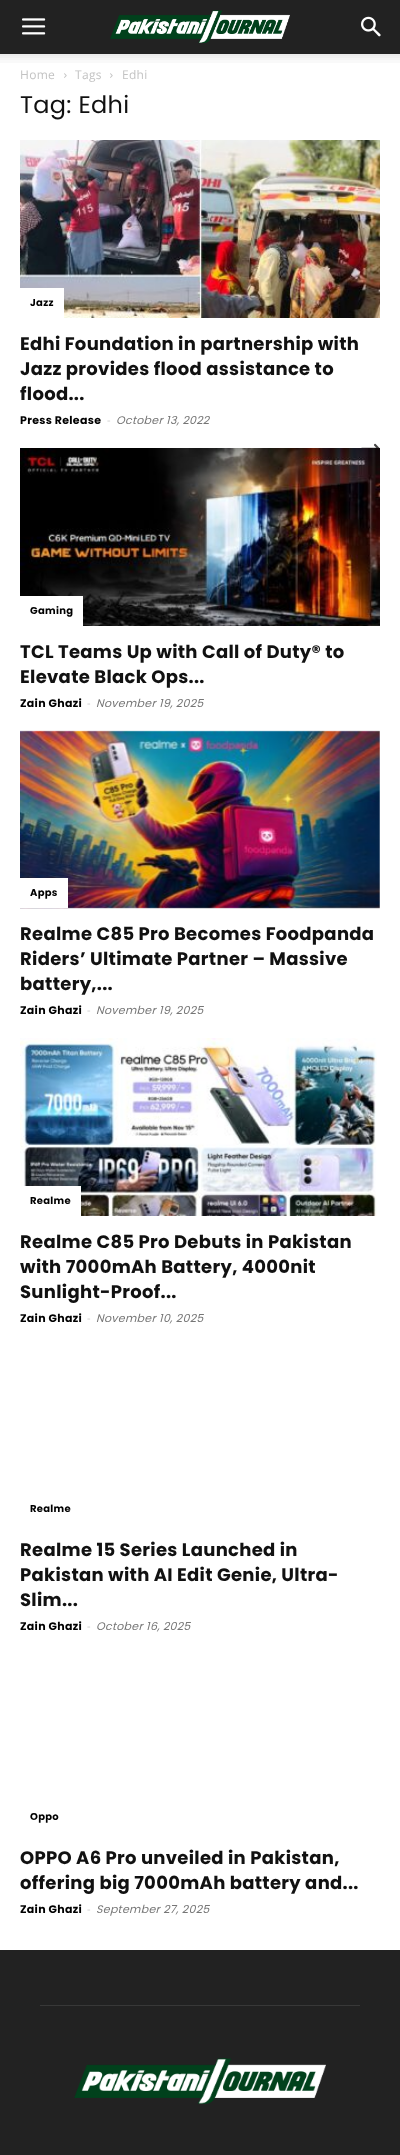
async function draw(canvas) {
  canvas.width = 400
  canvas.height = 2155
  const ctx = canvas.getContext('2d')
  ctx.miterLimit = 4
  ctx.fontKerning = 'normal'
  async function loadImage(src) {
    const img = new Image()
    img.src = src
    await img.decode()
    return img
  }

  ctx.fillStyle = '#fff'
  ctx.fillRect(0, 0, 400, 2155)
  ctx.fillStyle = '#222'
  ctx.fillRect(0, 0, 400, 54)
  ctx.drawImage(await loadImage('image0.png'), 22, 18, 24, 17)
  ctx.drawImage(await loadImage('image1.png'), 110, 10, 180, 33)
  ctx.drawImage(await loadImage('image2.png'), 361, 16, 20, 21)
  ctx.drawImage(await loadImage('image3.png'), 0, 54, 400, 9)
  ctx.letterSpacing = '0.3px'
  ctx.font = '12px Open Sans'
  ctx.fillStyle = '#c3c3c3'
  ctx.fillText('Home', 20, 79)
  ctx.drawImage(await loadImage('image4.png'), 64, 73, 3, 5)
  ctx.fillText('Tags', 75, 79)
  ctx.drawImage(await loadImage('image4.png'), 110, 73, 3, 5)
  ctx.fillText('Edhi', 122, 79)
  ctx.font = '24px Poppins'
  ctx.fillStyle = '#111'
  ctx.fillText('Tag: Edhi', 20, 113)
  ctx.drawImage(await loadImage('image5.png'), 20, 140, 360, 178)
  ctx.fillStyle = '#fff'
  ctx.fillRect(20, 288, 44, 30)
  ctx.font = 'bold 10px Poppins'
  ctx.fillStyle = '#000'
  ctx.fillText('Jazz', 30, 306)
  ctx.font = 'bold 18px Poppins'
  ctx.fillStyle = '#111'
  ctx.fillText('Edhi Foundation in partnership with', 20, 350)
  ctx.fillText('Jazz provides flood assistance to', 20, 375)
  ctx.fillText('flood...', 20, 400)
  ctx.font = 'bold 11px Poppins'
  ctx.fillStyle = '#000'
  ctx.fillText('Press Release', 20, 424)
  ctx.font = '11px Open Sans'
  ctx.fillStyle = '#ccc'
  ctx.fillText('-', 107, 424)
  ctx.font = 'italic 11px Poppins'
  ctx.fillStyle = '#767676'
  ctx.fillText('October 13, 2022', 116, 424)
  ctx.drawImage(await loadImage('image6.png'), 361, 443, 19, 5)
  ctx.drawImage(await loadImage('image7.png'), 20, 448, 360, 178)
  ctx.fillStyle = '#fff'
  ctx.fillRect(20, 596, 63, 30)
  ctx.font = 'bold 10px Poppins'
  ctx.fillStyle = '#000'
  ctx.fillText('Gaming', 30, 614)
  ctx.font = 'bold 18px Poppins'
  ctx.fillStyle = '#111'
  ctx.fillText('TCL Teams Up with Call of Duty® to', 20, 658)
  ctx.fillText('Elevate Black Ops...', 20, 683)
  ctx.font = 'bold 11px Poppins'
  ctx.fillStyle = '#000'
  ctx.fillText('Zain Ghazi', 20, 707)
  ctx.font = '11px Open Sans'
  ctx.fillStyle = '#ccc'
  ctx.fillText('-', 87, 707)
  ctx.font = 'italic 11px Poppins'
  ctx.fillStyle = '#767676'
  ctx.fillText('November 19, 2025', 96, 707)
  ctx.drawImage(await loadImage('image8.png'), 20, 730, 360, 179)
  ctx.fillStyle = '#fff'
  ctx.fillRect(20, 878, 48, 30)
  ctx.font = 'bold 10px Poppins'
  ctx.fillStyle = '#000'
  ctx.fillText('Apps', 30, 896)
  ctx.font = 'bold 18px Poppins'
  ctx.fillStyle = '#111'
  ctx.fillText('Realme C85 Pro Becomes Foodpanda', 20, 940)
  ctx.fillText('Riders’ Ultimate Partner – Massive', 20, 965)
  ctx.fillText('battery,...', 20, 990)
  ctx.font = 'bold 11px Poppins'
  ctx.fillStyle = '#000'
  ctx.fillText('Zain Ghazi', 20, 1014)
  ctx.font = '11px Open Sans'
  ctx.fillStyle = '#ccc'
  ctx.fillText('-', 87, 1014)
  ctx.font = 'italic 11px Poppins'
  ctx.fillStyle = '#767676'
  ctx.fillText('November 19, 2025', 96, 1014)
  ctx.drawImage(await loadImage('image9.png'), 20, 1038, 357, 178)
  ctx.fillStyle = '#fff'
  ctx.fillRect(20, 1186, 61, 30)
  ctx.font = 'bold 10px Poppins'
  ctx.fillStyle = '#000'
  ctx.fillText('Realme', 30, 1204)
  ctx.font = 'bold 18px Poppins'
  ctx.fillStyle = '#111'
  ctx.fillText('Realme C85 Pro Debuts in Pakistan', 20, 1248)
  ctx.fillText('with 7000mAh Battery, 4000nit', 20, 1273)
  ctx.fillText('Sunlight-Proof...', 20, 1298)
  ctx.font = 'bold 11px Poppins'
  ctx.fillStyle = '#000'
  ctx.fillText('Zain Ghazi', 20, 1322)
  ctx.font = '11px Open Sans'
  ctx.fillStyle = '#ccc'
  ctx.fillText('-', 87, 1322)
  ctx.font = 'italic 11px Poppins'
  ctx.fillStyle = '#767676'
  ctx.fillText('November 10, 2025', 96, 1322)
  ctx.font = 'bold 10px Poppins'
  ctx.fillStyle = '#000'
  ctx.fillText('Realme', 30, 1512)
  ctx.font = 'bold 18px Poppins'
  ctx.fillStyle = '#111'
  ctx.fillText('Realme 15 Series Launched in', 20, 1556)
  ctx.fillText('Pakistan with AI Edit Genie, Ultra-', 20, 1581)
  ctx.fillText('Slim...', 20, 1606)
  ctx.font = 'bold 11px Poppins'
  ctx.fillStyle = '#000'
  ctx.fillText('Zain Ghazi', 20, 1630)
  ctx.font = '11px Open Sans'
  ctx.fillStyle = '#ccc'
  ctx.fillText('-', 87, 1630)
  ctx.font = 'italic 11px Poppins'
  ctx.fillStyle = '#767676'
  ctx.fillText('October 16, 2025', 96, 1630)
  ctx.font = 'bold 10px Poppins'
  ctx.fillStyle = '#000'
  ctx.fillText('Oppo', 30, 1820)
  ctx.font = 'bold 18px Poppins'
  ctx.fillStyle = '#111'
  ctx.fillText('OPPO A6 Pro unveiled in Pakistan,', 20, 1864)
  ctx.fillText('offering big 7000mAh battery and...', 20, 1889)
  ctx.font = 'bold 11px Poppins'
  ctx.fillStyle = '#000'
  ctx.fillText('Zain Ghazi', 20, 1913)
  ctx.font = '11px Open Sans'
  ctx.fillStyle = '#ccc'
  ctx.fillText('-', 87, 1913)
  ctx.font = 'italic 11px Poppins'
  ctx.fillStyle = '#767676'
  ctx.fillText('September 27, 2025', 96, 1913)
  ctx.fillStyle = '#222'
  ctx.fillRect(0, 1950, 400, 205)
  ctx.fillStyle = '#383838'
  ctx.fillRect(40, 2005, 320, 1)
  ctx.drawImage(await loadImage('image10.png'), 74, 2058, 252, 46)
}

draw(document.querySelector('canvas'))
